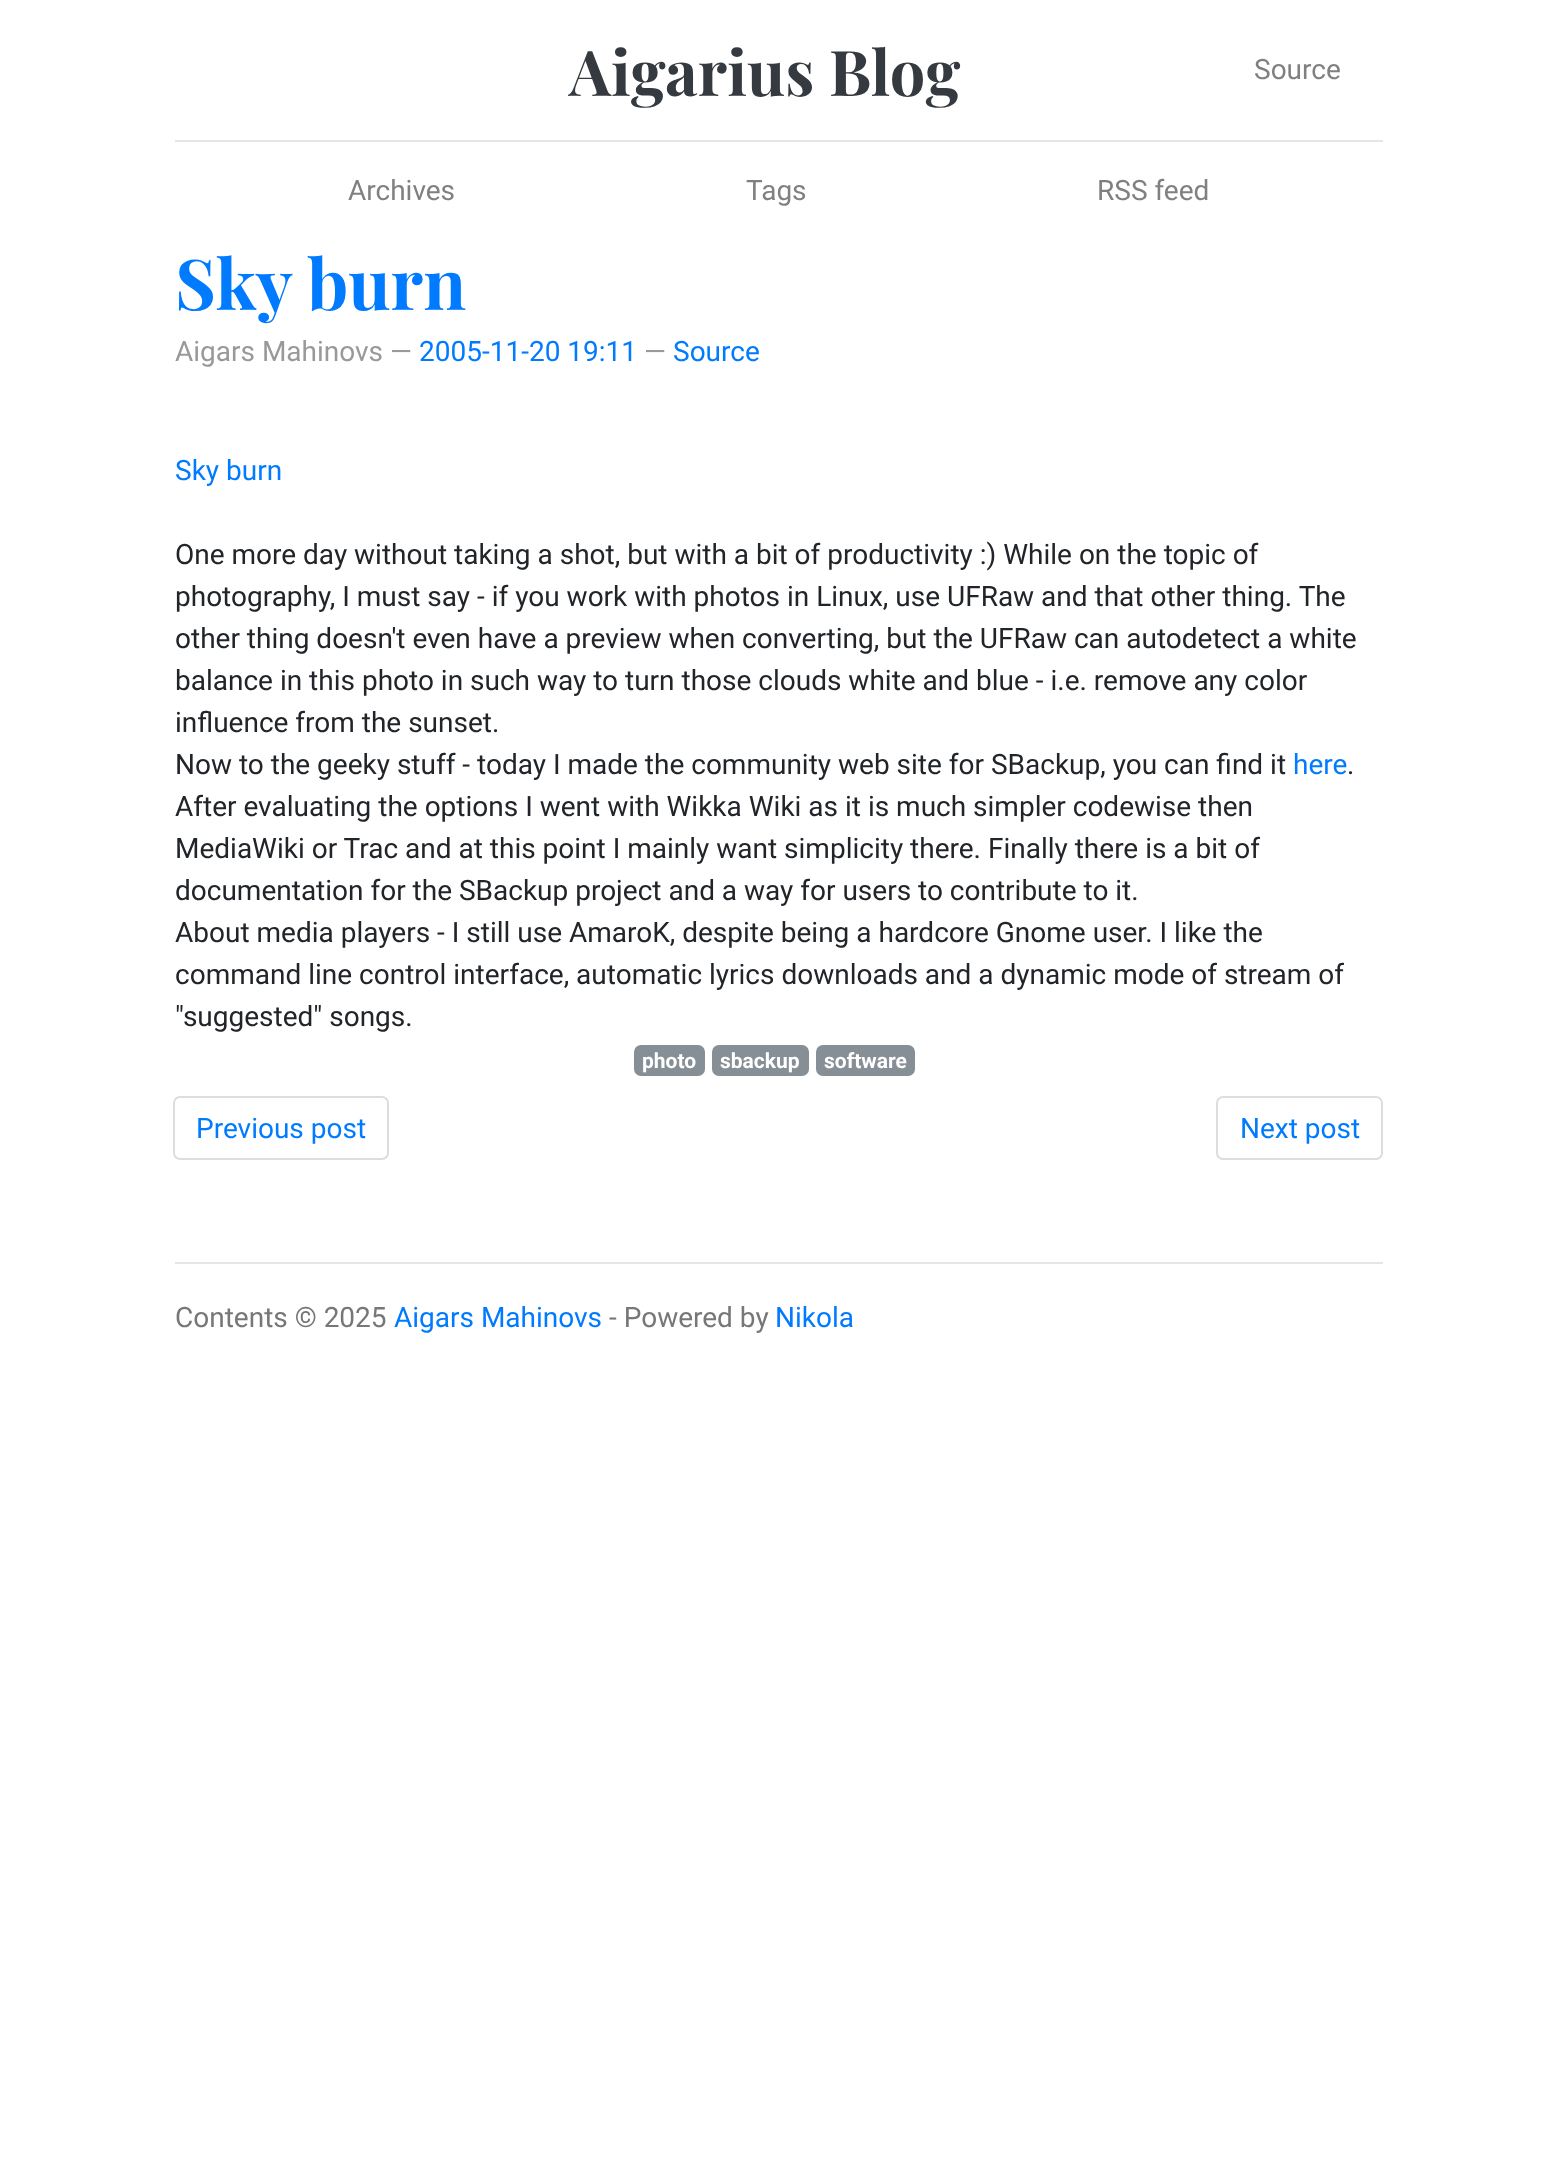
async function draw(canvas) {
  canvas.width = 1556
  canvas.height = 2180
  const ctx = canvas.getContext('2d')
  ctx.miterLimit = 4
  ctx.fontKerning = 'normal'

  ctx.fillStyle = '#fff'
  ctx.fillRect(0, 0, 1556, 2180)
  ctx.fillStyle = '#e5e5e5'
  ctx.fillRect(175, 140, 1208, 2)
  ctx.font = 'bold 63px Playfair Display'
  ctx.fillStyle = '#343a40'
  ctx.fillText('Aigarius Blog', 569, 96)
  ctx.font = '28px Roboto'
  ctx.fillStyle = '#808080'
  ctx.fillText('Source', 1254, 79)
  ctx.fillText('Archives', 348, 200)
  ctx.fillText('Tags', 746, 200)
  ctx.fillText('RSS feed', 1097, 200)
  ctx.font = 'bold 70px Playfair Display'
  ctx.fillStyle = '#007bff'
  ctx.fillText('Sky burn', 175, 310)
  ctx.font = '28px Roboto'
  ctx.fillStyle = '#999'
  ctx.fillText('Aigars Mahinovs —', 175, 361)
  ctx.fillStyle = '#007bff'
  ctx.fillText('2005-11-20 19:11', 419, 361)
  ctx.fillStyle = '#999'
  ctx.fillText('—', 644, 361)
  ctx.fillStyle = '#007bff'
  ctx.fillText('Source', 673, 361)
  ctx.fillText('Sky burn', 175, 480)
  ctx.fillStyle = '#212529'
  ctx.fillText('One more day without taking a shot, but with a bit of productivity :) While on the topic of', 175, 564)
  ctx.fillText('photography, I must say - if you work with photos in Linux, use UFRaw and that other thing. The', 175, 606)
  ctx.fillText('other thing doesn\'t even have a preview when converting, but the UFRaw can autodetect a white', 175, 648)
  ctx.fillText('balance in this photo in such way to turn those clouds white and blue - i.e. remove any color', 175, 690)
  ctx.fillText('influence from the sunset.', 175, 732)
  ctx.fillText('Now to the geeky stuff - today I made the community web site for SBackup, you can find it', 175, 774)
  ctx.fillStyle = '#007bff'
  ctx.fillText('here', 1293, 774)
  ctx.fillStyle = '#212529'
  ctx.fillText('.', 1347, 774)
  ctx.fillText('After evaluating the options I went with Wikka Wiki as it is much simpler codewise then', 175, 816)
  ctx.fillText('MediaWiki or Trac and at this point I mainly want simplicity there. Finally there is a bit of', 175, 858)
  ctx.fillText('documentation for the SBackup project and a way for users to contribute to it.', 175, 900)
  ctx.fillText('About media players - I still use AmaroK, despite being a hardcore Gnome user. I like the', 175, 942)
  ctx.fillText('command line control interface, automatic lyrics downloads and a dynamic mode of stream of', 175, 984)
  ctx.fillText('"suggested" songs.', 175, 1026)
  ctx.fillStyle = '#868e96'
  ctx.beginPath()
  ctx.roundRect(634, 1045, 71, 31, 7)
  ctx.fill()
  ctx.font = 'bold 21px Roboto'
  ctx.fillStyle = '#fff'
  ctx.fillText('photo', 642, 1068)
  ctx.fillStyle = '#868e96'
  ctx.beginPath()
  ctx.roundRect(712, 1045, 97, 31, 7)
  ctx.fill()
  ctx.fillStyle = '#fff'
  ctx.fillText('sbackup', 720, 1068)
  ctx.fillStyle = '#868e96'
  ctx.beginPath()
  ctx.roundRect(816, 1045, 99, 31, 7)
  ctx.fill()
  ctx.fillStyle = '#fff'
  ctx.fillText('software', 824, 1068)
  ctx.beginPath()
  ctx.roundRect(174, 1097, 214, 62, 6)
  ctx.strokeStyle = '#ddd'
  ctx.lineWidth = 2
  ctx.stroke()
  ctx.font = '28px Roboto'
  ctx.fillStyle = '#007bff'
  ctx.fillText('Previous post', 196, 1138)
  ctx.beginPath()
  ctx.roundRect(1217, 1097, 165, 62, 6)
  ctx.stroke()
  ctx.fillText('Next post', 1240, 1138)
  ctx.fillStyle = '#e5e5e5'
  ctx.fillRect(175, 1262, 1208, 2)
  ctx.fillStyle = '#777'
  ctx.fillText('Contents © 2025', 175, 1327)
  ctx.fillStyle = '#007bff'
  ctx.fillText('Aigars Mahinovs', 394, 1327)
  ctx.fillStyle = '#777'
  ctx.fillText('- Powered by', 609, 1327)
  ctx.fillStyle = '#007bff'
  ctx.fillText('Nikola', 775, 1327)
}

draw(document.querySelector('canvas'))
